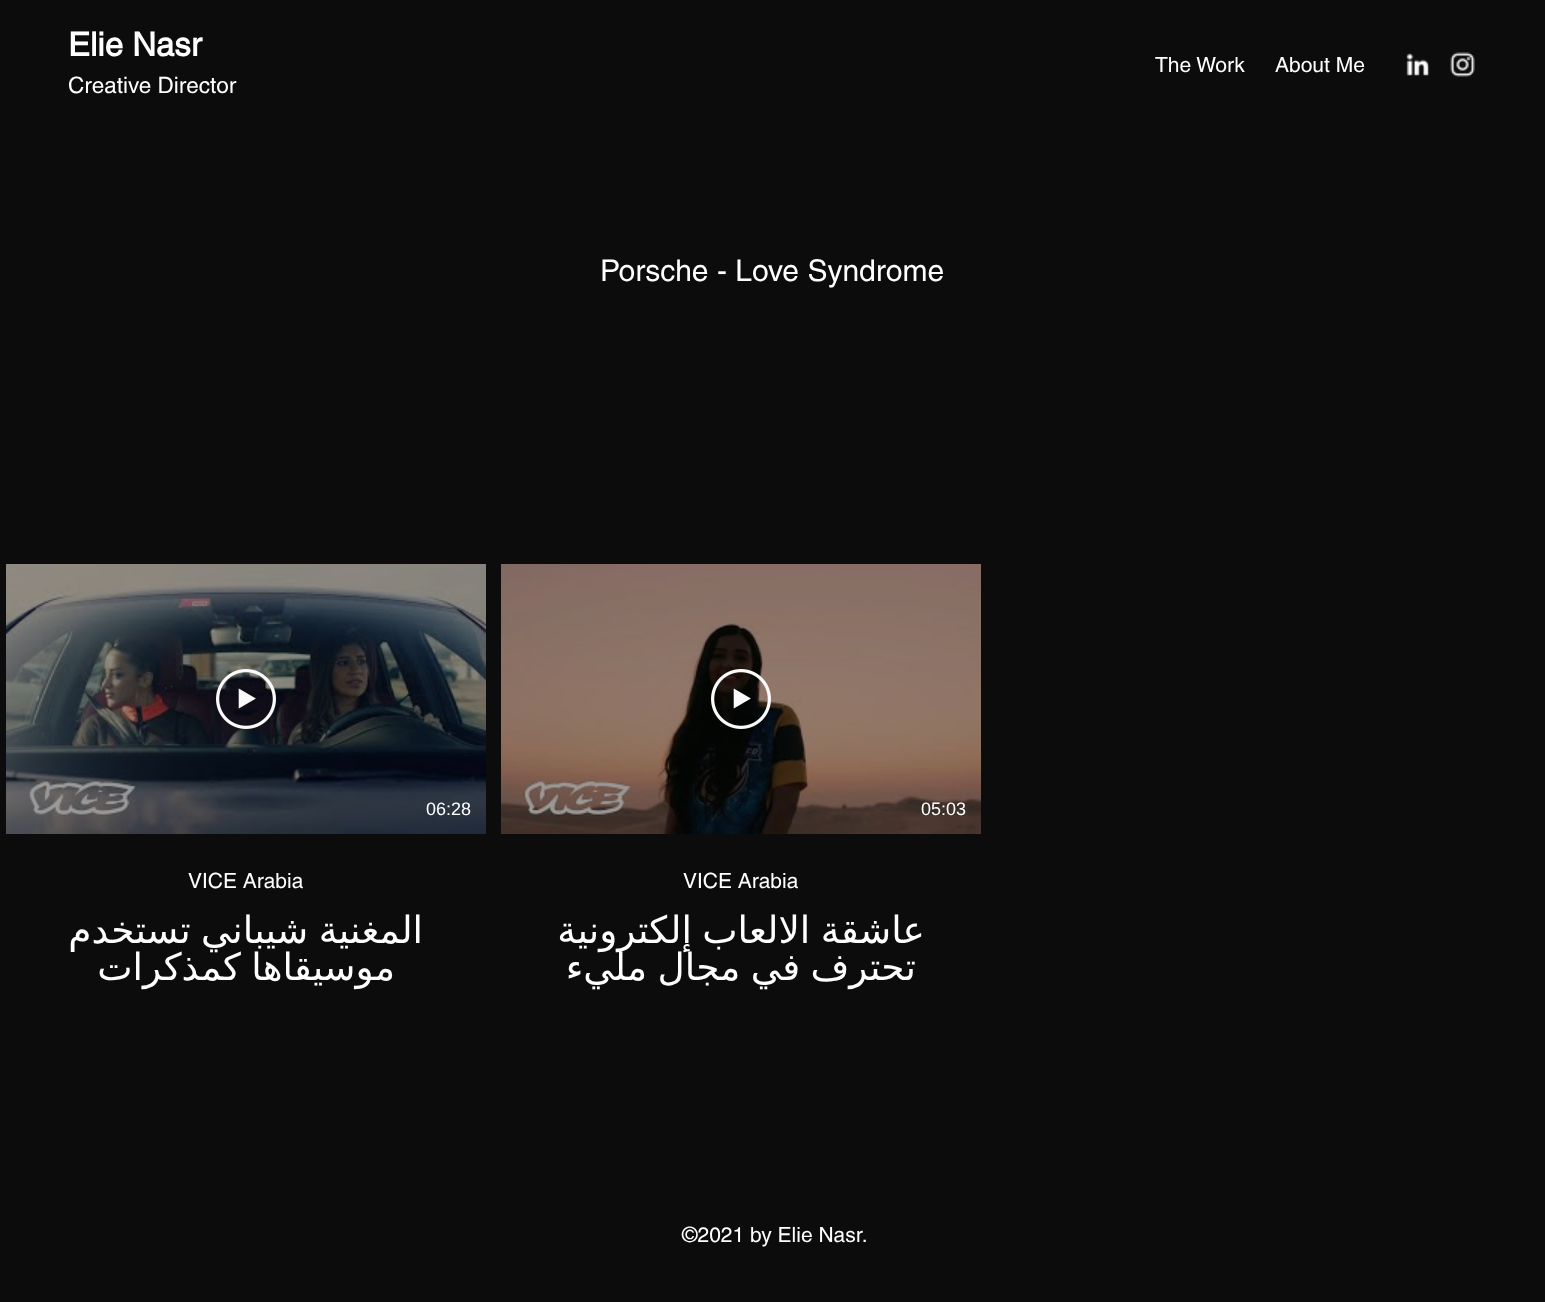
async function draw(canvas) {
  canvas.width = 1545
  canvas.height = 1302
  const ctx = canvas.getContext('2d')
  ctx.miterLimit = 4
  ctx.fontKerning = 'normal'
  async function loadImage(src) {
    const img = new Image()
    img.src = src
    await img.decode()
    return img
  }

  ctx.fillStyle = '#0c0c0d'
  ctx.fillRect(0, 0, 1545, 1302)
  ctx.font = 'bold 33px helvetica'
  ctx.fillStyle = '#fff'
  ctx.fillText('Elie Nasr', 68, 56)
  ctx.font = '22.5px helvetica'
  ctx.fillText('Creative Director', 68, 93)
  ctx.font = '21px helvetica'
  ctx.fillText('The Work', 1155, 72)
  ctx.fillText('About Me', 1275, 72)
  ctx.drawImage(await loadImage('image0.png'), 1406, 53, 24, 23)
  ctx.drawImage(await loadImage('image1.png'), 1450, 52, 25, 25)
  ctx.font = '30px helvetica'
  ctx.fillText('Porsche - Love Syndrome', 600, 281)
  ctx.drawImage(await loadImage('image2.png'), 6, 564, 480, 270)
  ctx.drawImage(await loadImage('image3.png'), 216, 669, 60, 60)
  ctx.font = '18px Liberation Sans'
  ctx.fillText('06:28', 426, 815)
  ctx.font = '21px helvetica'
  ctx.fillText('VICE Arabia', 188, 888)
  ctx.wordSpacing = '-1.5px'
  ctx.direction = 'rtl'
  ctx.font = '37.5px DejaVu Sans'
  ctx.fillText('المغنية شيباني تستخدم', 423, 943)
  ctx.fillText('موسيقاها كمذكرات', 395, 980)
  ctx.drawImage(await loadImage('image4.png'), 501, 564, 480, 270)
  ctx.drawImage(await loadImage('image5.png'), 711, 669, 60, 60)
  ctx.wordSpacing = '0px'
  ctx.direction = 'ltr'
  ctx.font = '18px Liberation Sans'
  ctx.fillText('05:03', 921, 815)
  ctx.font = '21px helvetica'
  ctx.fillText('VICE Arabia', 683, 888)
  ctx.wordSpacing = '-1.5px'
  ctx.direction = 'rtl'
  ctx.font = '37.5px DejaVu Sans'
  ctx.fillText('عاشقة الالعاب إلكترونية', 925, 943)
  ctx.fillText('تحترف في مجال مليء', 916, 980)
  ctx.wordSpacing = '0px'
  ctx.direction = 'ltr'
  ctx.font = '21px helvetica'
  ctx.fillText('©2021 by Elie Nasr.', 682, 1242)
}

draw(document.querySelector('canvas'))
